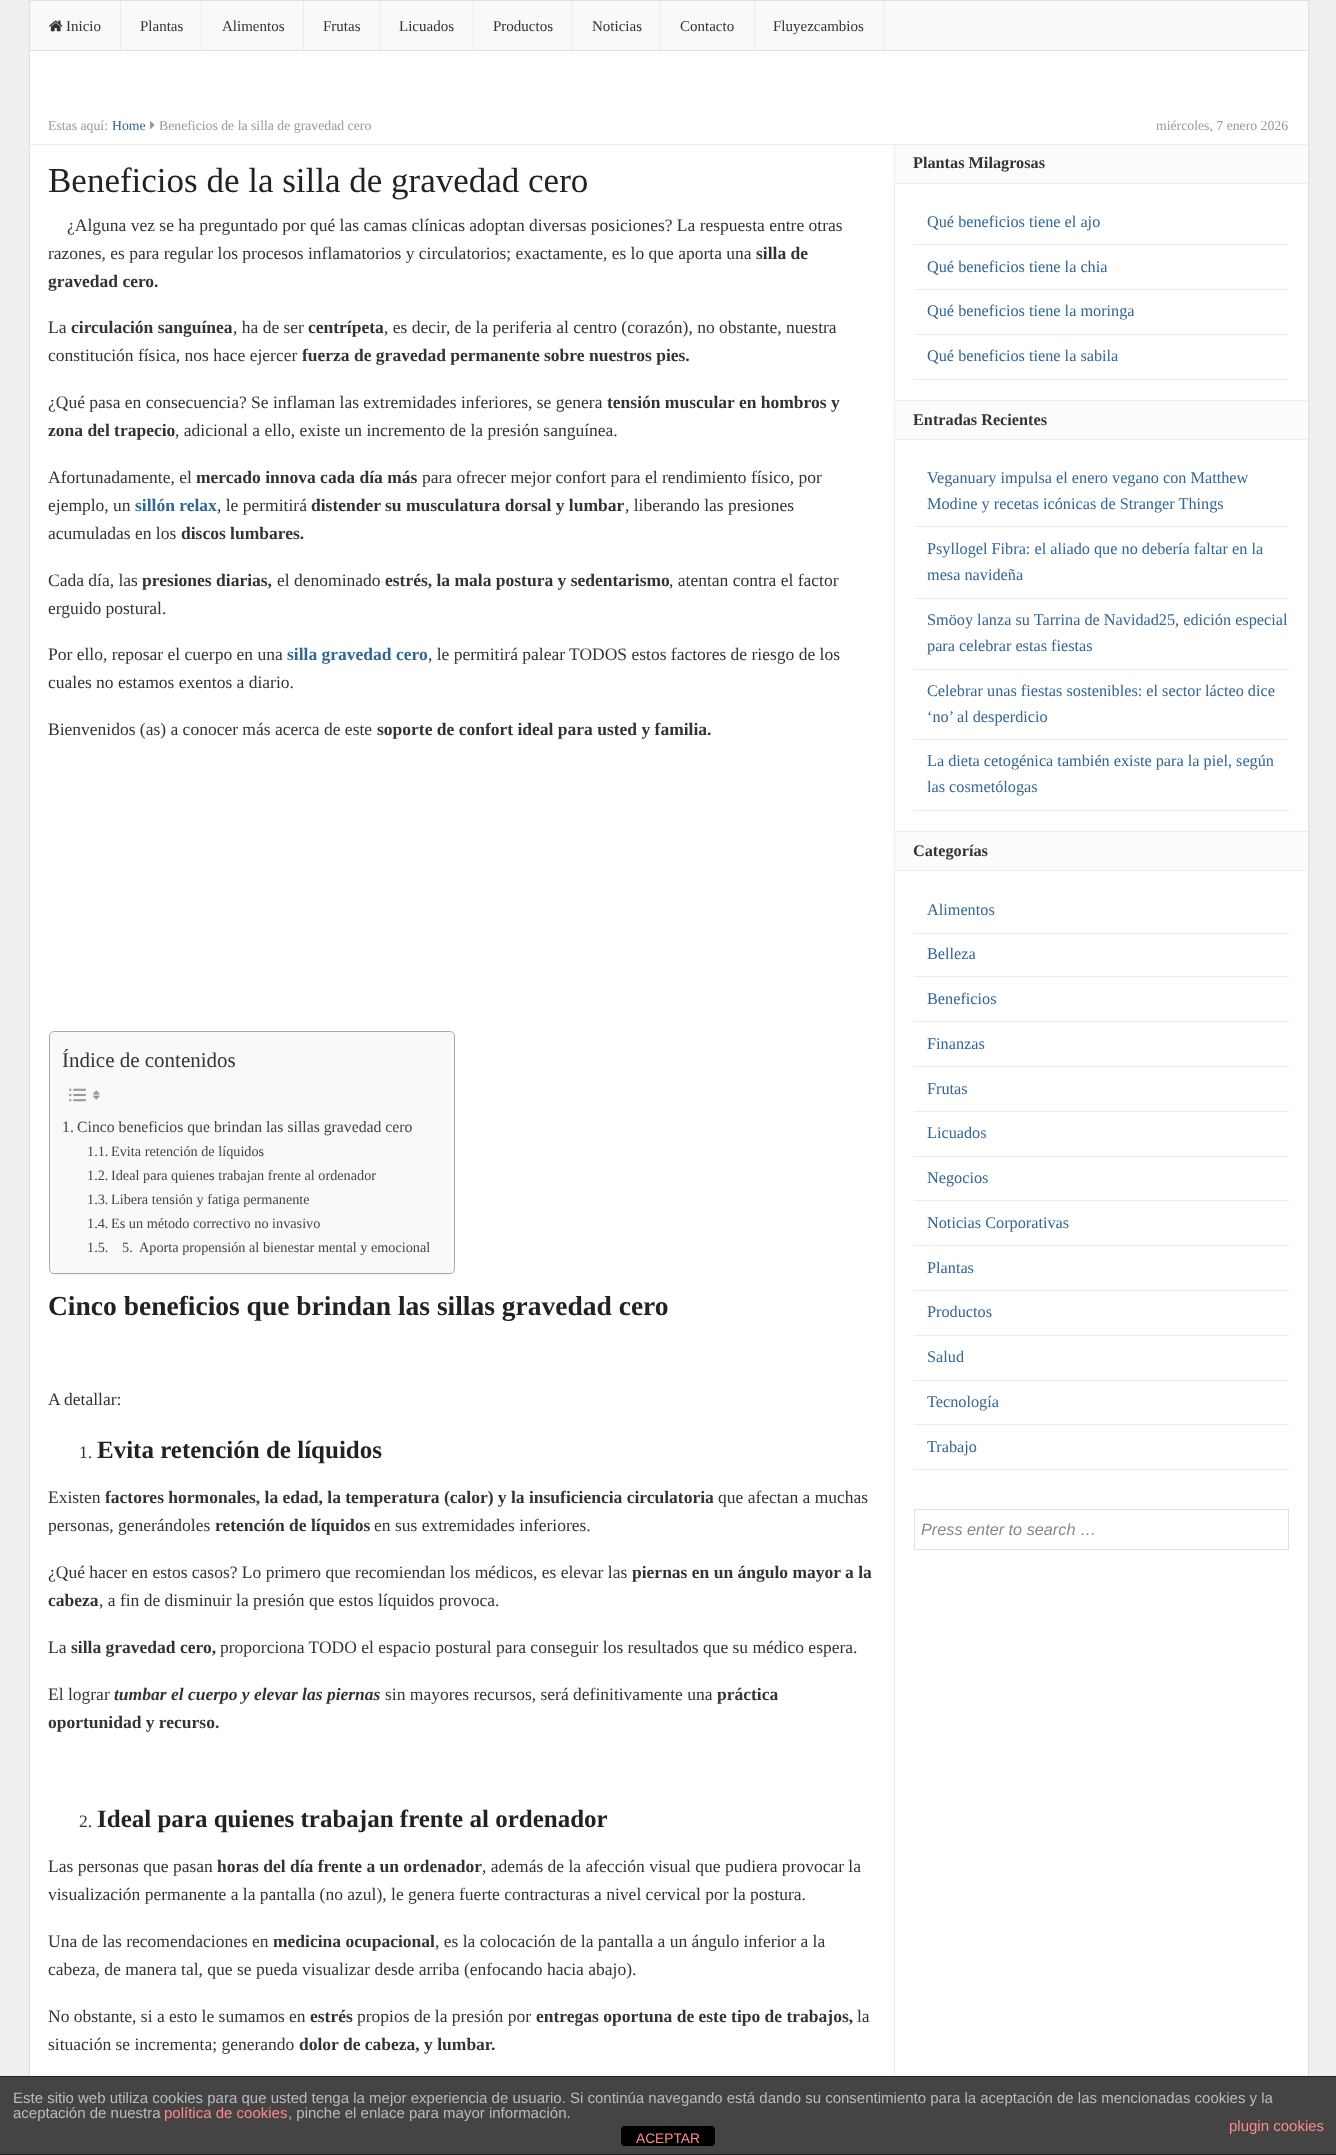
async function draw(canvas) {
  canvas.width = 1336
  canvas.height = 2155
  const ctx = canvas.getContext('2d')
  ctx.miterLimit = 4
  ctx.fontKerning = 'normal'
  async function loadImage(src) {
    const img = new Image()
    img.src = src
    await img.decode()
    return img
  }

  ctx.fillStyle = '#efefef'
  ctx.fillRect(0, 0, 1336, 2155)
  ctx.fillStyle = '#fff'
  ctx.fillRect(30, 51, 1278, 2025)
  ctx.strokeStyle = '#dfdfdf'
  ctx.strokeRect(29.5, 0.5, 1279, 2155)
  ctx.fillStyle = '#f9f9f9'
  ctx.fillRect(30, 1, 1278, 49)
  ctx.fillStyle = '#dfdfdf'
  ctx.fillRect(30, 50, 1278, 1)
  ctx.fillStyle = '#ecede8'
  ctx.fillRect(120, 1, 1, 50)
  ctx.drawImage(await loadImage('image0.png'), 49, 20, 14, 12)
  ctx.font = '15px Liberation Serif'
  ctx.fillStyle = '#333'
  ctx.fillText('Inicio', 66, 31)
  ctx.fillStyle = '#ecede8'
  ctx.fillRect(201, 1, 1, 50)
  ctx.fillStyle = '#333'
  ctx.fillText('Plantas', 140, 31)
  ctx.fillStyle = '#ecede8'
  ctx.fillRect(303, 1, 1, 50)
  ctx.fillStyle = '#333'
  ctx.fillText('Alimentos', 222, 31)
  ctx.fillStyle = '#ecede8'
  ctx.fillRect(379, 1, 1, 50)
  ctx.fillStyle = '#333'
  ctx.fillText('Frutas', 323, 31)
  ctx.fillStyle = '#ecede8'
  ctx.fillRect(473, 1, 1, 50)
  ctx.fillStyle = '#333'
  ctx.fillText('Licuados', 399, 31)
  ctx.fillStyle = '#ecede8'
  ctx.fillRect(571, 1, 1, 50)
  ctx.fillStyle = '#333'
  ctx.fillText('Productos', 493, 31)
  ctx.fillStyle = '#ecede8'
  ctx.fillRect(660, 1, 1, 50)
  ctx.fillStyle = '#333'
  ctx.fillText('Noticias', 592, 31)
  ctx.fillStyle = '#ecede8'
  ctx.fillRect(754, 1, 1, 50)
  ctx.fillStyle = '#333'
  ctx.fillText('Contacto', 680, 31)
  ctx.fillStyle = '#ecede8'
  ctx.fillRect(883, 1, 1, 50)
  ctx.fillStyle = '#333'
  ctx.fillText('Fluyezcambios', 773, 31)
  ctx.font = '13.75px Liberation Serif'
  ctx.fillStyle = '#999'
  ctx.fillText('Estas aquí:', 48, 130)
  ctx.fillStyle = '#326693'
  ctx.fillText('Home', 112, 130)
  ctx.drawImage(await loadImage('image1.png'), 150, 121, 5, 8)
  ctx.fillStyle = '#999'
  ctx.fillText('Beneficios de la silla de gravedad cero', 159, 130)
  ctx.fillText('miércoles, 7 enero 2026', 1156, 130)
  ctx.fillStyle = '#ecede8'
  ctx.fillRect(30, 144, 1278, 1)
  ctx.fillRect(894, 145, 1, 1931)
  ctx.font = '35px Liberation Serif'
  ctx.fillStyle = '#222'
  ctx.fillText('Beneficios de la silla de gravedad cero', 48, 192)
  ctx.font = '17.5px Liberation Serif'
  ctx.fillStyle = '#333'
  ctx.fillText('¿Alguna vez se ha preguntado por qué las camas clínicas adoptan diversas posiciones? La respuesta entre otras', 67, 231)
  ctx.fillText('razones, es para regular los procesos inflamatorios y circulatorios; exactamente, es lo que aporta una', 48, 259)
  ctx.font = 'bold 17.5px Liberation Serif'
  ctx.fillText('silla de', 756, 259)
  ctx.fillText('gravedad cero.', 48, 287)
  ctx.font = '17.5px Liberation Serif'
  ctx.fillText('La', 48, 333)
  ctx.font = 'bold 17.5px Liberation Serif'
  ctx.fillText('circulación sanguínea', 71, 333)
  ctx.font = '17.5px Liberation Serif'
  ctx.fillText(', ha de ser', 233, 333)
  ctx.font = 'bold 17.5px Liberation Serif'
  ctx.fillText('centrípeta', 308, 333)
  ctx.font = '17.5px Liberation Serif'
  ctx.fillText(', es decir, de la periferia al centro (corazón), no obstante, nuestra', 384, 333)
  ctx.fillText('constitución física, nos hace ejercer', 48, 361)
  ctx.font = 'bold 17.5px Liberation Serif'
  ctx.fillText('fuerza de gravedad permanente sobre nuestros pies.', 302, 361)
  ctx.font = '17.5px Liberation Serif'
  ctx.fillText('¿Qué pasa en consecuencia? Se inflaman las extremidades inferiores, se genera', 48, 408)
  ctx.font = 'bold 17.5px Liberation Serif'
  ctx.fillText('tensión muscular en hombros y', 607, 408)
  ctx.fillText('zona del trapecio', 48, 436)
  ctx.font = '17.5px Liberation Serif'
  ctx.fillText(', adicional a ello, existe un incremento de la presión sanguínea.', 175, 436)
  ctx.fillText('Afortunadamente, el', 48, 483)
  ctx.font = 'bold 17.5px Liberation Serif'
  ctx.fillText('mercado innova cada día más', 196, 483)
  ctx.font = '17.5px Liberation Serif'
  ctx.fillText('para ofrecer mejor confort para el rendimiento físico, por', 422, 483)
  ctx.fillText('ejemplo, un', 48, 511)
  ctx.font = 'bold 17.5px Liberation Serif'
  ctx.fillStyle = '#326693'
  ctx.fillText('sillón relax', 135, 511)
  ctx.font = '17.5px Liberation Serif'
  ctx.fillStyle = '#333'
  ctx.fillText(', le permitirá', 217, 511)
  ctx.font = 'bold 17.5px Liberation Serif'
  ctx.fillText('distender su musculatura dorsal y lumbar', 311, 511)
  ctx.font = '17.5px Liberation Serif'
  ctx.fillText(', liberando las presiones', 625, 511)
  ctx.fillText('acumuladas en los', 48, 539)
  ctx.font = 'bold 17.5px Liberation Serif'
  ctx.fillText('discos lumbares.', 181, 539)
  ctx.font = '17.5px Liberation Serif'
  ctx.fillText('Cada día, las', 48, 586)
  ctx.font = 'bold 17.5px Liberation Serif'
  ctx.fillText('presiones diarias,', 142, 586)
  ctx.font = '17.5px Liberation Serif'
  ctx.fillText('el denominado', 277, 586)
  ctx.font = 'bold 17.5px Liberation Serif'
  ctx.fillText('estrés, la mala postura y sedentarismo', 385, 586)
  ctx.font = '17.5px Liberation Serif'
  ctx.fillText(', atentan contra el factor', 669, 586)
  ctx.fillText('erguido postural.', 48, 614)
  ctx.fillText('Por ello, reposar el cuerpo en una', 48, 660)
  ctx.font = 'bold 17.5px Liberation Serif'
  ctx.fillStyle = '#326693'
  ctx.fillText('silla gravedad cero', 287, 660)
  ctx.font = '17.5px Liberation Serif'
  ctx.fillStyle = '#333'
  ctx.fillText(', le permitirá palear TODOS estos factores de riesgo de los', 428, 660)
  ctx.fillText('cuales no estamos exentos a diario.', 48, 688)
  ctx.fillText('Bienvenidos (as) a conocer más acerca de este', 48, 735)
  ctx.font = 'bold 17.5px Liberation Serif'
  ctx.fillText('soporte de confort ideal para usted y familia.', 377, 735)
  ctx.fillStyle = '#0000000d'
  ctx.filter = 'blur(0.5px)'
  ctx.beginPath()
  ctx.roundRect(49, 1033, 406, 242, 5)
  ctx.fill()
  ctx.filter = 'none'
  ctx.fillStyle = '#f9f9f9'
  ctx.beginPath()
  ctx.roundRect(49.5, 1031.5, 405, 242, 4.5)
  ctx.fill()
  ctx.strokeStyle = '#aaa'
  ctx.stroke()
  ctx.font = '21px Liberation Serif'
  ctx.fillStyle = '#333'
  ctx.fillText('Índice de contenidos', 62, 1067)
  ctx.drawImage(await loadImage('image2.png'), 69, 1088, 17, 14)
  ctx.drawImage(await loadImage('image3.png'), 93, 1090, 7, 10)
  ctx.font = '15.75px Liberation Serif'
  ctx.fillStyle = '#444'
  ctx.fillText('1.', 62, 1132)
  ctx.fillText('Cinco beneficios que brindan las sillas gravedad cero', 77, 1132)
  ctx.font = '14.25px Liberation Serif'
  ctx.fillText('1.1.', 87, 1156)
  ctx.fillText('Evita retención de líquidos', 111, 1156)
  ctx.fillText('1.2.', 87, 1180)
  ctx.fillText('Ideal para quienes trabajan frente al ordenador', 111, 1180)
  ctx.fillText('1.3.', 87, 1204)
  ctx.fillText('Libera tensión y fatiga permanente', 111, 1204)
  ctx.fillText('1.4.', 87, 1228)
  ctx.fillText('Es un método correctivo no invasivo', 111, 1228)
  ctx.fillText('1.5.', 87, 1252)
  ctx.fillText('5.  Aporta propensión al bienestar mental y emocional', 122, 1252)
  ctx.font = 'bold 27.5px Liberation Serif'
  ctx.fillStyle = '#222'
  ctx.fillText('Cinco beneficios que brindan las sillas gravedad cero', 48, 1315)
  ctx.font = '17.5px Liberation Serif'
  ctx.fillStyle = '#333'
  ctx.fillText('A detallar:', 48, 1405)
  ctx.fillText('1.', 79, 1458)
  ctx.font = 'bold 25px Liberation Serif'
  ctx.fillStyle = '#222'
  ctx.fillText('Evita retención de líquidos', 97, 1458)
  ctx.font = '17.5px Liberation Serif'
  ctx.fillStyle = '#333'
  ctx.fillText('Existen', 48, 1503)
  ctx.font = 'bold 17.5px Liberation Serif'
  ctx.fillText('factores hormonales, la edad, la temperatura (calor) y la insuficiencia circulatoria', 105, 1503)
  ctx.font = '17.5px Liberation Serif'
  ctx.fillText('que afectan a muchas', 718, 1503)
  ctx.fillText('personas, generándoles', 48, 1531)
  ctx.font = 'bold 17.5px Liberation Serif'
  ctx.fillText('retención de líquidos', 215, 1531)
  ctx.font = '17.5px Liberation Serif'
  ctx.fillText('en sus extremidades inferiores.', 374, 1531)
  ctx.fillText('¿Qué hacer en estos casos? Lo primero que recomiendan los médicos, es elevar las', 48, 1578)
  ctx.font = 'bold 17.5px Liberation Serif'
  ctx.fillText('piernas en un ángulo mayor a la', 632, 1578)
  ctx.fillText('cabeza', 48, 1606)
  ctx.font = '17.5px Liberation Serif'
  ctx.fillText(', a fin de disminuir la presión que estos líquidos provoca.', 99, 1606)
  ctx.fillText('La', 48, 1653)
  ctx.font = 'bold 17.5px Liberation Serif'
  ctx.fillText('silla gravedad cero,', 71, 1653)
  ctx.font = '17.5px Liberation Serif'
  ctx.fillText('proporciona TODO el espacio postural para conseguir los resultados que su médico espera.', 220, 1653)
  ctx.fillText('El lograr', 48, 1700)
  ctx.font = 'italic bold 17.5px Liberation Serif'
  ctx.fillText('tumbar el cuerpo y elevar las piernas', 114, 1700)
  ctx.font = '17.5px Liberation Serif'
  ctx.fillText('sin mayores recursos, será definitivamente una', 385, 1700)
  ctx.font = 'bold 17.5px Liberation Serif'
  ctx.fillText('práctica', 717, 1700)
  ctx.fillText('oportunidad y recurso.', 48, 1728)
  ctx.font = '17.5px Liberation Serif'
  ctx.fillText('2.', 79, 1827)
  ctx.font = 'bold 25px Liberation Serif'
  ctx.fillStyle = '#222'
  ctx.fillText('Ideal para quienes trabajan frente al ordenador', 97, 1827)
  ctx.font = '17.5px Liberation Serif'
  ctx.fillStyle = '#333'
  ctx.fillText('Las personas que pasan', 48, 1872)
  ctx.font = 'bold 17.5px Liberation Serif'
  ctx.fillText('horas del día frente a un ordenador', 217, 1872)
  ctx.font = '17.5px Liberation Serif'
  ctx.fillText(', además de la afección visual que pudiera provocar la', 482, 1872)
  ctx.fillText('visualización permanente a la pantalla (no azul), le genera fuerte contracturas a nivel cervical por la postura.', 48, 1900)
  ctx.fillText('Una de las recomendaciones en', 48, 1947)
  ctx.font = 'bold 17.5px Liberation Serif'
  ctx.fillText('medicina ocupacional', 273, 1947)
  ctx.font = '17.5px Liberation Serif'
  ctx.fillText(', es la colocación de la pantalla a un ángulo inferior a la', 435, 1947)
  ctx.fillText('cabeza, de manera tal, que se pueda visualizar desde arriba (enfocando hacia abajo).', 48, 1975)
  ctx.fillText('No obstante, si a esto le sumamos en', 48, 2022)
  ctx.font = 'bold 17.5px Liberation Serif'
  ctx.fillText('estrés', 310, 2022)
  ctx.font = '17.5px Liberation Serif'
  ctx.fillText('propios de la presión por', 357, 2022)
  ctx.font = 'bold 17.5px Liberation Serif'
  ctx.fillText('entregas oportuna de este tipo de trabajos,', 536, 2022)
  ctx.font = '17.5px Liberation Serif'
  ctx.fillText('la', 857, 2022)
  ctx.fillText('situación se incrementa; generando', 48, 2050)
  ctx.font = 'bold 17.5px Liberation Serif'
  ctx.fillText('dolor de cabeza, y lumbar.', 299, 2050)
  ctx.fillStyle = '#fbfbfb'
  ctx.fillRect(895, 145, 413, 38)
  ctx.fillStyle = '#ecede8'
  ctx.fillRect(895, 183, 413, 1)
  ctx.font = 'bold 16.25px Liberation Serif'
  ctx.fillStyle = '#333'
  ctx.fillText('Plantas Milagrosas', 913, 168)
  ctx.fillStyle = '#ecede8'
  ctx.fillRect(914, 244, 375, 1)
  ctx.font = '16.25px Liberation Serif'
  ctx.fillStyle = '#326693'
  ctx.fillText('Qué beneficios tiene el ajo', 927, 227)
  ctx.fillStyle = '#ecede8'
  ctx.fillRect(914, 289, 375, 1)
  ctx.fillStyle = '#326693'
  ctx.fillText('Qué beneficios tiene la chia', 927, 272)
  ctx.fillStyle = '#ecede8'
  ctx.fillRect(914, 334, 375, 1)
  ctx.fillStyle = '#326693'
  ctx.fillText('Qué beneficios tiene la moringa', 927, 316)
  ctx.fillStyle = '#ecede8'
  ctx.fillRect(914, 379, 375, 1)
  ctx.fillStyle = '#326693'
  ctx.fillText('Qué beneficios tiene la sabila', 927, 361)
  ctx.fillStyle = '#fbfbfb'
  ctx.fillRect(895, 401, 413, 38)
  ctx.fillStyle = '#ecede8'
  ctx.fillRect(895, 400, 413, 1)
  ctx.fillRect(895, 439, 413, 1)
  ctx.font = 'bold 16.25px Liberation Serif'
  ctx.fillStyle = '#333'
  ctx.fillText('Entradas Recientes', 913, 425)
  ctx.fillStyle = '#ecede8'
  ctx.fillRect(914, 526, 375, 1)
  ctx.font = '16.25px Liberation Serif'
  ctx.fillStyle = '#326693'
  ctx.fillText('Veganuary impulsa el enero vegano con Matthew', 927, 483)
  ctx.fillText('Modine y recetas icónicas de Stranger Things', 927, 509)
  ctx.fillStyle = '#ecede8'
  ctx.fillRect(914, 598, 375, 1)
  ctx.fillStyle = '#326693'
  ctx.fillText('Psyllogel Fibra: el aliado que no debería faltar en la', 927, 554)
  ctx.fillText('mesa navideña', 927, 580)
  ctx.fillStyle = '#ecede8'
  ctx.fillRect(914, 669, 375, 1)
  ctx.fillStyle = '#326693'
  ctx.fillText('Smöoy lanza su Tarrina de Navidad25, edición especial', 927, 625)
  ctx.fillText('para celebrar estas fiestas', 927, 651)
  ctx.fillStyle = '#ecede8'
  ctx.fillRect(914, 739, 375, 1)
  ctx.fillStyle = '#326693'
  ctx.fillText('Celebrar unas fiestas sostenibles: el sector lácteo dice', 927, 696)
  ctx.fillText('‘no’ al desperdicio', 927, 722)
  ctx.fillStyle = '#ecede8'
  ctx.fillRect(914, 810, 375, 1)
  ctx.fillStyle = '#326693'
  ctx.fillText('La dieta cetogénica también existe para la piel, según', 927, 766)
  ctx.fillText('las cosmetólogas', 927, 792)
  ctx.fillStyle = '#fbfbfb'
  ctx.fillRect(895, 832, 413, 38)
  ctx.fillStyle = '#ecede8'
  ctx.fillRect(895, 831, 413, 1)
  ctx.fillRect(895, 870, 413, 1)
  ctx.font = 'bold 16.25px Liberation Serif'
  ctx.fillStyle = '#333'
  ctx.fillText('Categorías', 913, 856)
  ctx.fillStyle = '#ecede8'
  ctx.fillRect(914, 933, 375, 1)
  ctx.font = '16.25px Liberation Serif'
  ctx.fillStyle = '#326693'
  ctx.fillText('Alimentos', 927, 915)
  ctx.fillStyle = '#ecede8'
  ctx.fillRect(914, 976, 375, 1)
  ctx.fillStyle = '#326693'
  ctx.fillText('Belleza', 927, 959)
  ctx.fillStyle = '#ecede8'
  ctx.fillRect(914, 1021, 375, 1)
  ctx.fillStyle = '#326693'
  ctx.fillText('Beneficios', 927, 1004)
  ctx.fillStyle = '#ecede8'
  ctx.fillRect(914, 1066, 375, 1)
  ctx.fillStyle = '#326693'
  ctx.fillText('Finanzas', 927, 1049)
  ctx.fillStyle = '#ecede8'
  ctx.fillRect(914, 1111, 375, 1)
  ctx.fillStyle = '#326693'
  ctx.fillText('Frutas', 927, 1094)
  ctx.fillStyle = '#ecede8'
  ctx.fillRect(914, 1156, 375, 1)
  ctx.fillStyle = '#326693'
  ctx.fillText('Licuados', 927, 1138)
  ctx.fillStyle = '#ecede8'
  ctx.fillRect(914, 1200, 375, 1)
  ctx.fillStyle = '#326693'
  ctx.fillText('Negocios', 927, 1183)
  ctx.fillStyle = '#ecede8'
  ctx.fillRect(914, 1245, 375, 1)
  ctx.fillStyle = '#326693'
  ctx.fillText('Noticias Corporativas', 927, 1228)
  ctx.fillStyle = '#ecede8'
  ctx.fillRect(914, 1290, 375, 1)
  ctx.fillStyle = '#326693'
  ctx.fillText('Plantas', 927, 1273)
  ctx.fillStyle = '#ecede8'
  ctx.fillRect(914, 1335, 375, 1)
  ctx.fillStyle = '#326693'
  ctx.fillText('Productos', 927, 1317)
  ctx.fillStyle = '#ecede8'
  ctx.fillRect(914, 1380, 375, 1)
  ctx.fillStyle = '#326693'
  ctx.fillText('Salud', 927, 1362)
  ctx.fillStyle = '#ecede8'
  ctx.fillRect(914, 1424, 375, 1)
  ctx.fillStyle = '#326693'
  ctx.fillText('Tecnología', 927, 1407)
  ctx.fillStyle = '#ecede8'
  ctx.fillRect(914, 1469, 375, 1)
  ctx.fillStyle = '#326693'
  ctx.fillText('Trabajo', 927, 1452)
  ctx.strokeStyle = '#e0e0e0'
  ctx.strokeRect(914.5, 1509.5, 374, 40)
  ctx.font = 'italic 16.25px Liberation Sans'
  ctx.fillStyle = '#888'
  ctx.fillText('Press enter to search …', 921, 1535)
  ctx.fillStyle = '#444'
  ctx.fillRect(0, 2077, 1336, 77)
  ctx.fillStyle = '#222'
  ctx.fillRect(0, 2076, 1336, 1)
  ctx.fillRect(0, 2154, 1336, 1)
  ctx.font = '15px Liberation Sans'
  ctx.fillStyle = '#bbb'
  ctx.fillText('Este sitio web utiliza cookies para que usted tenga la mejor experiencia de usuario. Si continúa navegando está dando su consentimiento para la aceptación de las mencionadas cookies y la', 13, 2103)
  ctx.fillText('aceptación de nuestra', 13, 2118)
  ctx.fillStyle = '#f88'
  ctx.fillText('política de cookies', 164, 2118)
  ctx.fillStyle = '#bbb'
  ctx.fillText(', pinche el enlace para mayor información.', 288, 2118)
  ctx.fillStyle = '#f88'
  ctx.fillText('plugin cookies', 1229, 2131)
  ctx.fillStyle = '#000'
  ctx.beginPath()
  ctx.roundRect(621, 2126, 94, 20, 4)
  ctx.fill()
  ctx.font = '13.75px Liberation Sans'
  ctx.fillStyle = '#f88'
  ctx.fillText('ACEPTAR', 636, 2143)
}

draw(document.querySelector('canvas'))
